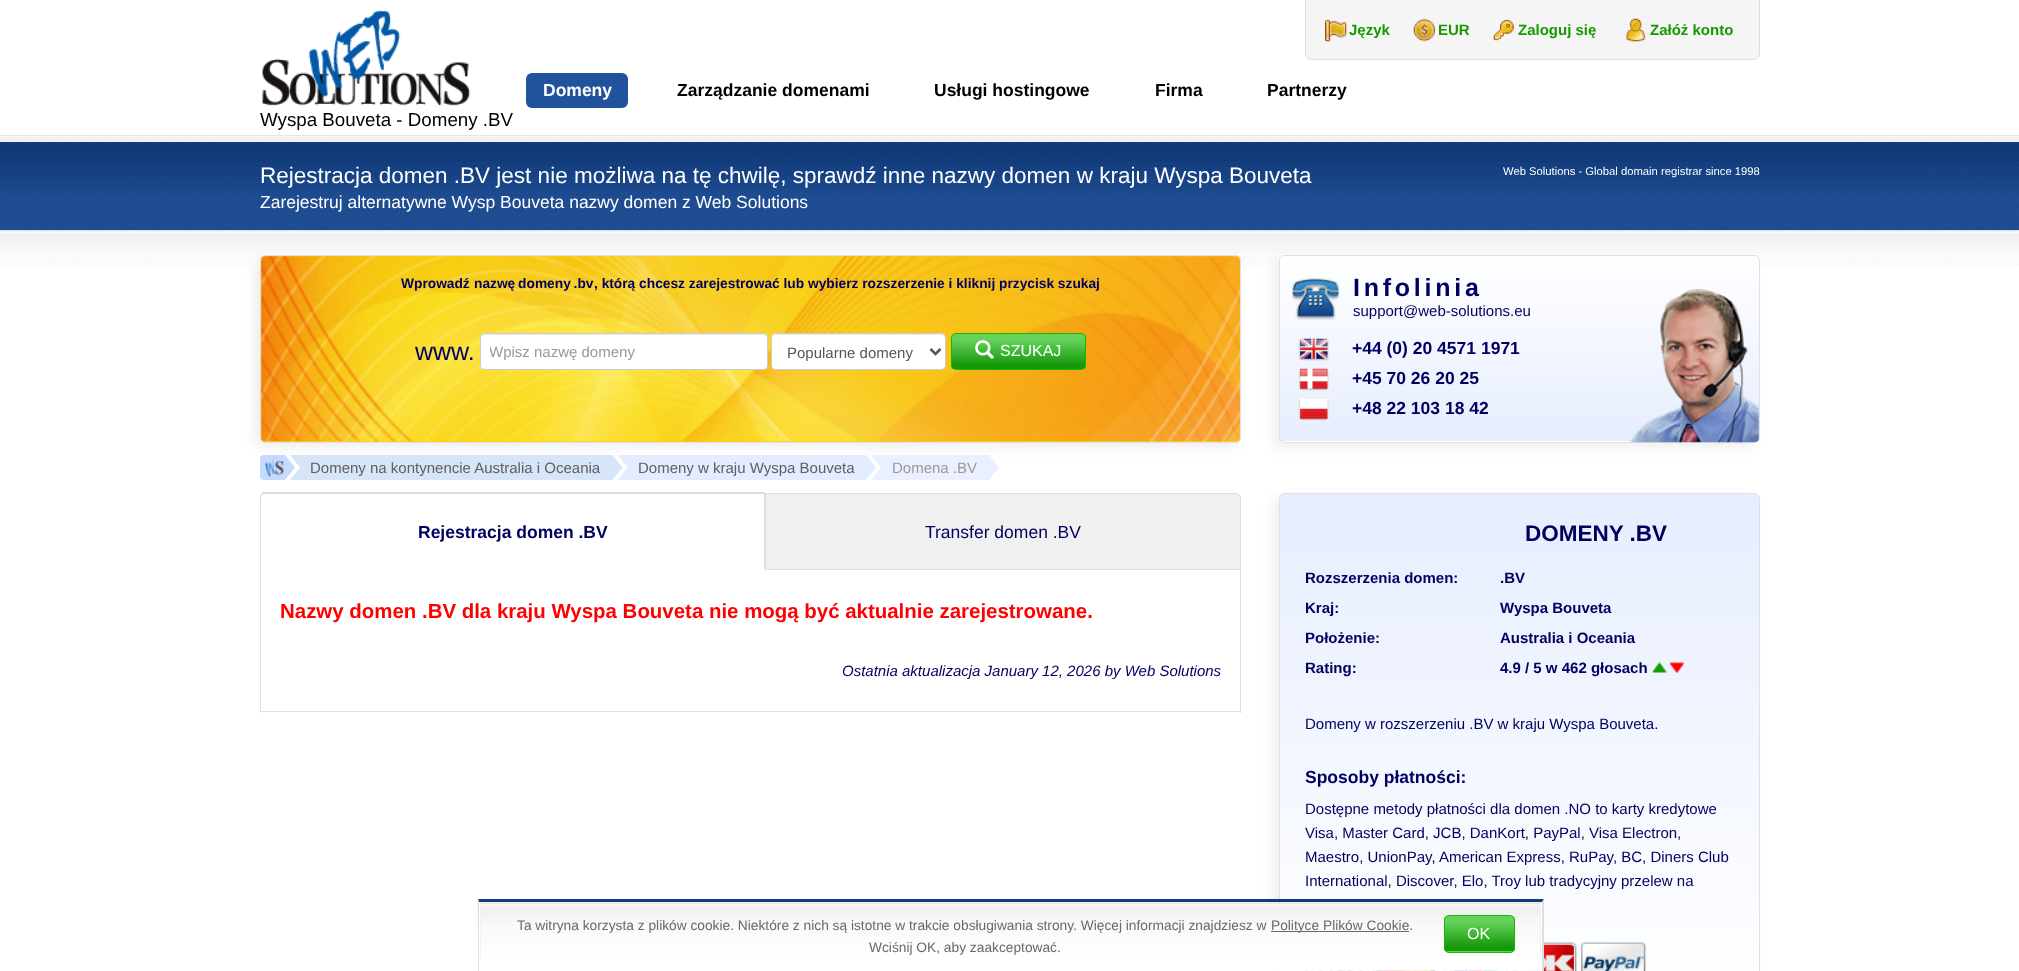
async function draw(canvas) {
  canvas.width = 2019
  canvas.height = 971
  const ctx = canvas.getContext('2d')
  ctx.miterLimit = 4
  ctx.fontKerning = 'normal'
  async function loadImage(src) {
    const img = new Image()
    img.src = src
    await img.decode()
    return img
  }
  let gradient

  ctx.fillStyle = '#fff'
  ctx.fillRect(0, 0, 2019, 971)
  ctx.fillStyle = '#f5f5f5'
  ctx.beginPath()
  ctx.moveTo(1305.5, -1.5)
  ctx.lineTo(1759.5, -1.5)
  ctx.lineTo(1759.5, 54)
  ctx.bezierCurveTo(1759.5, 57, 1757, 59.5, 1754, 59.5)
  ctx.lineTo(1311, 59.5)
  ctx.bezierCurveTo(1308, 59.5, 1305.5, 57, 1305.5, 54)
  ctx.closePath()
  ctx.fill()
  ctx.strokeStyle = '#dedede'
  ctx.stroke()
  ctx.drawImage(await loadImage('image0.png'), 1325, 19, 22, 23)
  ctx.font = 'bold 15px Liberation Sans'
  ctx.fillStyle = '#169a00'
  ctx.fillText('Język', 1349, 35)
  ctx.drawImage(await loadImage('image1.png'), 1413, 18, 22, 24)
  ctx.fillText('EUR', 1438, 35)
  ctx.drawImage(await loadImage('image2.png'), 1493, 19, 21, 22)
  ctx.fillText('Zaloguj się', 1518, 35)
  ctx.drawImage(await loadImage('image3.png'), 1626, 18, 20, 24)
  ctx.fillText('Załóż konto', 1650, 35)
  ctx.fillStyle = '#21529c'
  ctx.beginPath()
  ctx.roundRect(526, 73, 102, 35, 6)
  ctx.fill()
  ctx.font = 'bold 17.5px Liberation Sans'
  ctx.fillStyle = '#fff'
  ctx.fillText('Domeny', 543, 96)
  ctx.fillStyle = '#000'
  ctx.fillText('Zarządzanie domenami', 677, 96)
  ctx.fillText('Usługi hostingowe', 934, 96)
  ctx.fillText('Firma', 1155, 96)
  ctx.fillText('Partnerzy', 1267, 96)
  ctx.drawImage(await loadImage('image4.png'), 262, 10, 209, 96)
  ctx.font = '18.75px Liberation Sans'
  ctx.fillText('Wyspa Bouveta - Domeny .BV', 260, 126)
  ctx.drawImage(await loadImage('image5.png'), 0, 135, 2019, 95)
  ctx.font = '22.5px Liberation Sans'
  ctx.fillStyle = '#fff'
  ctx.fillText('Rejestracja domen .BV jest nie możliwa na tę chwilę, sprawdź inne nazwy domen w kraju Wyspa Bouveta', 260, 183)
  ctx.font = '17.5px Liberation Sans'
  ctx.fillText('Zarejestruj alternatywne Wysp Bouveta nazwy domen z Web Solutions', 260, 208)
  ctx.font = '11.25px Liberation Sans'
  ctx.fillText('Web Solutions - Global domain registrar since 1998', 1503, 175)
  ctx.drawImage(await loadImage('image6.png'), 0, 230, 2019, 36)
  ctx.fillStyle = '#efefef'
  ctx.filter = 'blur(6px)'
  ctx.beginPath()
  ctx.roundRect(254, 260, 981, 188, 6)
  ctx.fill()
  ctx.filter = 'none'
  ctx.fillStyle = '#ffd700'
  ctx.beginPath()
  ctx.roundRect(260, 255, 981, 188, 6)
  ctx.fill()
  ctx.drawImage(await loadImage('image7.png'), 261, 256, 979, 186)
  ctx.beginPath()
  ctx.roundRect(260.5, 255.5, 980, 187, 5.5)
  ctx.strokeStyle = '#e0e0e0'
  ctx.stroke()
  ctx.font = 'bold 13.75px Liberation Sans'
  ctx.fillStyle = '#000060'
  ctx.fillText('Wprowadź', 401, 288)
  ctx.wordSpacing = '-1px'
  ctx.fillText('nazwę domeny .bv', 474, 288)
  ctx.wordSpacing = '0px'
  ctx.fillText(', którą chcesz zarejestrować lub wybierz rozszerzenie i kliknij przycisk szukaj', 594, 288)
  ctx.font = '25px Liberation Sans'
  ctx.fillText('www.', 415, 360)
  ctx.fillStyle = '#fff'
  ctx.beginPath()
  ctx.roundRect(480, 333, 288, 37, 5)
  ctx.fill()
  ctx.fillStyle = '#ececec'
  ctx.beginPath()
  ctx.moveTo(485, 335)
  ctx.lineTo(762, 335)
  ctx.bezierCurveTo(765, 335, 766, 337, 766, 339)
  ctx.bezierCurveTo(766, 336, 765, 334, 762, 334)
  ctx.lineTo(485, 334)
  ctx.bezierCurveTo(482, 334, 481, 336, 481, 339)
  ctx.bezierCurveTo(481, 337, 483, 335, 485, 335)
  ctx.closePath()
  ctx.fill()
  ctx.beginPath()
  ctx.roundRect(480.5, 333.5, 287, 36, 4.5)
  ctx.strokeStyle = '#ccc'
  ctx.stroke()
  ctx.save()
  ctx.beginPath()
  ctx.rect(490, 343, 268, 17)
  ctx.clip()
  ctx.font = '15px Liberation Sans'
  ctx.fillStyle = '#999'
  ctx.fillText('Wpisz nazwę domeny', 489, 357)
  ctx.restore()
  ctx.fillStyle = '#fff'
  ctx.beginPath()
  ctx.roundRect(771, 333, 175, 37, 5)
  ctx.fill()
  ctx.fillStyle = '#ececec'
  ctx.beginPath()
  ctx.moveTo(776, 335)
  ctx.lineTo(941, 335)
  ctx.bezierCurveTo(943, 335, 945, 337, 945, 339)
  ctx.lineTo(945, 338)
  ctx.bezierCurveTo(945, 336, 943, 334, 941, 334)
  ctx.lineTo(777, 334)
  ctx.bezierCurveTo(776, 334, 774, 335, 774, 336)
  ctx.closePath()
  ctx.fill()
  ctx.beginPath()
  ctx.roundRect(771.5, 333.5, 174, 36, 4.5)
  ctx.stroke()
  ctx.beginPath()
  ctx.moveTo(930.5, 349)
  ctx.lineTo(935.5, 354)
  ctx.lineTo(940.5, 349)
  ctx.strokeStyle = '#555'
  ctx.lineWidth = 2.5
  ctx.stroke()
  ctx.font = '15px Liberation Sans'
  ctx.fillStyle = '#555'
  ctx.fillText('Popularne domeny', 787, 358)
  ctx.save()
  ctx.beginPath()
  ctx.roundRect(951, 333, 135, 37, 5)
  ctx.clip()
  gradient = ctx.createLinearGradient(953, 334, 953, 369)
  gradient.addColorStop(0.16, '#65d25b')
  gradient.addColorStop(0.89, '#159809')
  ctx.fillStyle = gradient
  ctx.fillRect(951, 334, 135, 35)
  ctx.restore()
  ctx.beginPath()
  ctx.roundRect(951.5, 333.5, 134, 36, 4.5)
  ctx.strokeStyle = '#13ba00'
  ctx.lineWidth = 1
  ctx.stroke()
  ctx.drawImage(await loadImage('image8.png'), 975, 340, 19, 19)
  ctx.font = '16px Liberation Sans'
  ctx.fillStyle = '#fff'
  ctx.fillText('SZUKAJ', 1000, 356)
  ctx.fillStyle = '#efefef'
  ctx.filter = 'blur(6px)'
  ctx.beginPath()
  ctx.roundRect(1273, 260, 481, 188, 6)
  ctx.fill()
  ctx.filter = 'none'
  ctx.save()
  ctx.beginPath()
  ctx.roundRect(1279, 255, 481, 188, 6)
  ctx.clip()
  gradient = ctx.createLinearGradient(1519, 256, 1519, 441)
  gradient.addColorStop(0, '#fff')
  gradient.addColorStop(1, '#e6edfe')
  ctx.fillStyle = gradient
  ctx.fillRect(1279, 256, 481, 185)
  gradient = ctx.createLinearGradient(1519, 441, 1519, 626)
  gradient.addColorStop(0, '#fff')
  gradient.addColorStop(1, '#e6edfe')
  ctx.fillStyle = gradient
  ctx.fillRect(1279, 441, 481, 2)
  ctx.restore()
  ctx.beginPath()
  ctx.roundRect(1279.5, 255.5, 480, 187, 5.5)
  ctx.strokeStyle = '#e0e0e0'
  ctx.stroke()
  ctx.drawImage(await loadImage('image9.png'), 1292, 278, 47, 42)
  ctx.letterSpacing = '3.75px'
  ctx.font = 'bold 25px Liberation Sans'
  ctx.fillStyle = '#000060'
  ctx.fillText('Infolinia', 1353, 296)
  ctx.letterSpacing = '0px'
  ctx.font = '15px Liberation Sans'
  ctx.fillText('support@web-solutions.eu', 1353, 316)
  ctx.drawImage(await loadImage('image10.png'), 1629, 288, 130, 155)
  ctx.drawImage(await loadImage('image11.png'), 1298, 337, 31, 24)
  ctx.font = 'bold 17.5px Liberation Sans'
  ctx.fillText('+44 (0) 20 4571 1971', 1352, 354)
  ctx.drawImage(await loadImage('image12.png'), 1298, 367, 31, 24)
  ctx.fillText('+45 70 26 20 25', 1352, 384)
  ctx.drawImage(await loadImage('image13.png'), 1298, 397, 31, 25)
  ctx.fillText('+48 22 103 18 42', 1352, 414)
  ctx.fillStyle = '#c6daff'
  ctx.beginPath()
  ctx.roundRect(260, 455, 25, 25, [4, 0, 0, 4])
  ctx.fill()
  ctx.drawImage(await loadImage('image14.png'), 265, 457, 19, 20)
  ctx.beginPath()
  ctx.moveTo(285, 480)
  ctx.lineTo(285, 455)
  ctx.lineTo(295, 467.5)
  ctx.closePath()
  ctx.fill()
  ctx.fillStyle = '#d6e5f8'
  ctx.fillRect(310, 455, 303, 25)
  ctx.beginPath()
  ctx.moveTo(290, 455)
  ctx.lineTo(310, 455)
  ctx.lineTo(300, 467.5)
  ctx.closePath()
  ctx.fill()
  ctx.fillRect(300, 455, 10, 25)
  ctx.beginPath()
  ctx.moveTo(310, 480)
  ctx.lineTo(290, 480)
  ctx.lineTo(300, 467.5)
  ctx.closePath()
  ctx.fill()
  ctx.font = '15px Liberation Sans'
  ctx.fillStyle = '#5f5f5f'
  ctx.fillText('Domeny na kontynencie Australia i Oceania', 310, 473)
  ctx.fillStyle = '#d6e5f8'
  ctx.beginPath()
  ctx.moveTo(612.5, 480)
  ctx.lineTo(612.5, 455)
  ctx.lineTo(622.5, 467.5)
  ctx.closePath()
  ctx.fill()
  ctx.fillStyle = '#e4ecff'
  ctx.fillRect(638, 455, 228, 25)
  ctx.beginPath()
  ctx.moveTo(617.5, 455)
  ctx.lineTo(637.5, 455)
  ctx.lineTo(627.5, 467.5)
  ctx.closePath()
  ctx.fill()
  ctx.fillRect(628, 455, 10, 25)
  ctx.beginPath()
  ctx.moveTo(637.5, 480)
  ctx.lineTo(617.5, 480)
  ctx.lineTo(627.5, 467.5)
  ctx.closePath()
  ctx.fill()
  ctx.fillStyle = '#5f5f5f'
  ctx.fillText('Domeny w kraju Wyspa Bouveta', 638, 473)
  ctx.fillStyle = '#e4ecff'
  ctx.beginPath()
  ctx.moveTo(866, 480)
  ctx.lineTo(866, 455)
  ctx.lineTo(876, 467.5)
  ctx.closePath()
  ctx.fill()
  ctx.fillStyle = '#eaf0ff'
  ctx.fillRect(891, 455, 98, 25)
  ctx.beginPath()
  ctx.moveTo(871, 455)
  ctx.lineTo(891, 455)
  ctx.lineTo(881, 467.5)
  ctx.closePath()
  ctx.fill()
  ctx.fillRect(881, 455, 10, 25)
  ctx.beginPath()
  ctx.moveTo(891, 480)
  ctx.lineTo(871, 480)
  ctx.lineTo(881, 467.5)
  ctx.closePath()
  ctx.fill()
  ctx.fillStyle = '#999'
  ctx.fillText('Domena .BV', 892, 473)
  ctx.fillStyle = '#eaf0ff'
  ctx.beginPath()
  ctx.moveTo(989, 480)
  ctx.lineTo(989, 455)
  ctx.lineTo(999, 467.5)
  ctx.closePath()
  ctx.fill()
  ctx.fillStyle = '#ddd'
  ctx.beginPath()
  ctx.moveTo(265, 494)
  ctx.lineTo(262, 495)
  ctx.lineTo(261, 494)
  ctx.lineTo(263, 492)
  ctx.lineTo(765, 492)
  ctx.lineTo(764, 494)
  ctx.closePath()
  ctx.fill()
  ctx.beginPath()
  ctx.moveTo(765, 492)
  ctx.lineTo(764, 494)
  ctx.lineTo(764, 569)
  ctx.lineTo(765, 570)
  ctx.closePath()
  ctx.fill()
  ctx.fillStyle = '#fff'
  ctx.beginPath()
  ctx.moveTo(765, 570)
  ctx.lineTo(764, 569)
  ctx.lineTo(261, 569)
  ctx.lineTo(260, 570)
  ctx.closePath()
  ctx.fill()
  ctx.fillStyle = '#ddd'
  ctx.beginPath()
  ctx.moveTo(260, 570)
  ctx.lineTo(261, 569)
  ctx.lineTo(261, 497)
  ctx.lineTo(262, 495)
  ctx.lineTo(261, 494)
  ctx.bezierCurveTo(260, 495, 260, 496, 260, 498)
  ctx.closePath()
  ctx.fill()
  ctx.font = 'bold 17.5px Liberation Sans'
  ctx.fillStyle = '#000060'
  ctx.fillText('Rejestracja domen .BV', 418, 538)
  ctx.fillStyle = '#f0f0f0'
  ctx.beginPath()
  ctx.roundRect(765.5, 493.5, 475, 76, [0, 4.5, 0, 0])
  ctx.fill()
  ctx.strokeStyle = '#ddd'
  ctx.stroke()
  ctx.font = '17.5px Liberation Sans'
  ctx.fillStyle = '#000060'
  ctx.fillText('Transfer domen .BV', 925, 538)
  ctx.fillStyle = '#e0e0e0'
  ctx.fillRect(1240, 570, 1, 143)
  ctx.fillRect(260, 711, 981, 1)
  ctx.fillRect(260, 570, 1, 143)
  ctx.font = 'bold 20.45px Liberation Sans'
  ctx.fillStyle = '#f00'
  ctx.fillText('Nazwy domen .BV dla kraju Wyspa Bouveta nie mogą być aktualnie zarejestrowane.', 280, 618)
  ctx.font = 'italic 15px Liberation Sans'
  ctx.fillStyle = '#000060'
  ctx.fillText('Ostatnia aktualizacja January 12, 2026 by Web Solutions', 842, 676)
  ctx.fillStyle = '#efefef'
  ctx.filter = 'blur(6px)'
  ctx.beginPath()
  ctx.roundRect(1273, 498, 481, 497, 6)
  ctx.fill()
  ctx.filter = 'none'
  ctx.save()
  ctx.beginPath()
  ctx.roundRect(1279, 493, 481, 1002, 6)
  ctx.clip()
  gradient = ctx.createLinearGradient(1519, 494, 1519, 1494)
  gradient.addColorStop(0, '#e6edfe')
  gradient.addColorStop(0.5, '#fff')
  gradient.addColorStop(1, '#e6edfe')
  ctx.fillStyle = gradient
  ctx.fillRect(1279, 494, 481, 477)
  ctx.restore()
  ctx.beginPath()
  ctx.roundRect(1279.5, 493.5, 480, 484, 5.5)
  ctx.strokeStyle = '#e0e0e0'
  ctx.stroke()
  ctx.font = 'bold 22.5px Liberation Sans'
  ctx.fillStyle = '#000060'
  ctx.fillText('DOMENY .BV', 1525, 541)
  ctx.font = 'bold 15px Liberation Sans'
  ctx.fillText('Rozszerzenia domen:', 1305, 583)
  ctx.fillText('.BV', 1500, 583)
  ctx.fillText('Kraj:', 1305, 613)
  ctx.fillText('Wyspa Bouveta', 1500, 613)
  ctx.fillText('Położenie:', 1305, 643)
  ctx.fillText('Australia i Oceania', 1500, 643)
  ctx.fillText('Rating:', 1305, 673)
  ctx.fillText('4.9 / 5 w 462 głosach', 1500, 673)
  ctx.drawImage(await loadImage('image15.png'), 1652, 662, 15, 11)
  ctx.drawImage(await loadImage('image16.png'), 1670, 662, 14, 11)
  ctx.font = '15px Liberation Sans'
  ctx.fillText('Domeny w rozszerzeniu .BV w kraju Wyspa Bouveta.', 1305, 729)
  ctx.font = 'bold 17.5px Liberation Sans'
  ctx.fillText('Sposoby płatności:', 1305, 783)
  ctx.font = '15px Liberation Sans'
  ctx.fillText('Dostępne metody płatności dla domen .NO to karty kredytowe', 1305, 814)
  ctx.fillText('Visa, Master Card, JCB, DanKort, PayPal, Visa Electron,', 1305, 838)
  ctx.fillText('Maestro, UnionPay, American Express, RuPay, BC, Diners Club', 1305, 862)
  ctx.fillText('International, Discover, Elo, Troy lub tradycyjny przelew na', 1305, 886)
  ctx.drawImage(await loadImage('image17.png'), 1305, 970, 64, 1)
  ctx.drawImage(await loadImage('image18.png'), 1373, 970, 65, 1)
  ctx.drawImage(await loadImage('image19.png'), 1443, 970, 65, 1)
  ctx.drawImage(await loadImage('image20.png'), 1512, 942, 65, 29)
  ctx.drawImage(await loadImage('image21.png'), 1581, 942, 66, 29)
  ctx.drawImage(await loadImage('image22.png'), 477, 902, 1065, 69)
  ctx.fillStyle = '#113d80'
  ctx.beginPath()
  ctx.moveTo(478, 899)
  ctx.lineTo(1544, 899)
  ctx.lineTo(1542, 902)
  ctx.lineTo(479, 902)
  ctx.closePath()
  ctx.fill()
  ctx.fillStyle = '#dedede'
  ctx.beginPath()
  ctx.moveTo(1544, 899)
  ctx.lineTo(1544, 971)
  ctx.lineTo(1542, 971)
  ctx.lineTo(1542, 902)
  ctx.closePath()
  ctx.fill()
  ctx.beginPath()
  ctx.moveTo(478, 971)
  ctx.lineTo(478, 899)
  ctx.lineTo(479, 902)
  ctx.lineTo(479, 971)
  ctx.closePath()
  ctx.fill()
  ctx.fillStyle = '#fff'
  ctx.fillRect(1541, 903, 1, 68)
  ctx.fillRect(479, 903, 1, 46)
  ctx.fillStyle = '#f1f1f1'
  ctx.fillRect(1540, 915, 1, 44)
  ctx.fillRect(480, 915, 1, 44)
  ctx.font = '13.75px Liberation Sans'
  ctx.fillStyle = '#696969'
  ctx.fillText('Ta witryna korzysta z plików cookie. Niektóre z nich są istotne w trakcie obsługiwania strony. Więcej informacji znajdziesz w', 517, 930)
  ctx.fillRect(1271, 931, 138, 1)
  ctx.fillText('Polityce Plików Cookie.', 1271, 930)
  ctx.fillText('Wciśnij OK, aby zaakceptować.', 869, 952)
  ctx.save()
  ctx.beginPath()
  ctx.roundRect(1444, 915, 71, 38, 5)
  ctx.clip()
  gradient = ctx.createLinearGradient(1445, 916, 1445, 951)
  gradient.addColorStop(0.16, '#65d25b')
  gradient.addColorStop(0.89, '#159809')
  ctx.fillStyle = gradient
  ctx.fillRect(1444, 916, 71, 35)
  gradient = ctx.createLinearGradient(1445, 951, 1445, 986)
  gradient.addColorStop(0.16, '#65d25b')
  gradient.addColorStop(0.89, '#159809')
  ctx.fillStyle = gradient
  ctx.fillRect(1444, 951, 71, 2)
  ctx.restore()
  ctx.beginPath()
  ctx.roundRect(1444.5, 915.5, 70, 37, 4.5)
  ctx.strokeStyle = '#13ba00'
  ctx.stroke()
  ctx.font = '16px Liberation Sans'
  ctx.fillStyle = '#fff'
  ctx.fillText('OK', 1467, 939)
}

draw(document.querySelector('canvas'))
